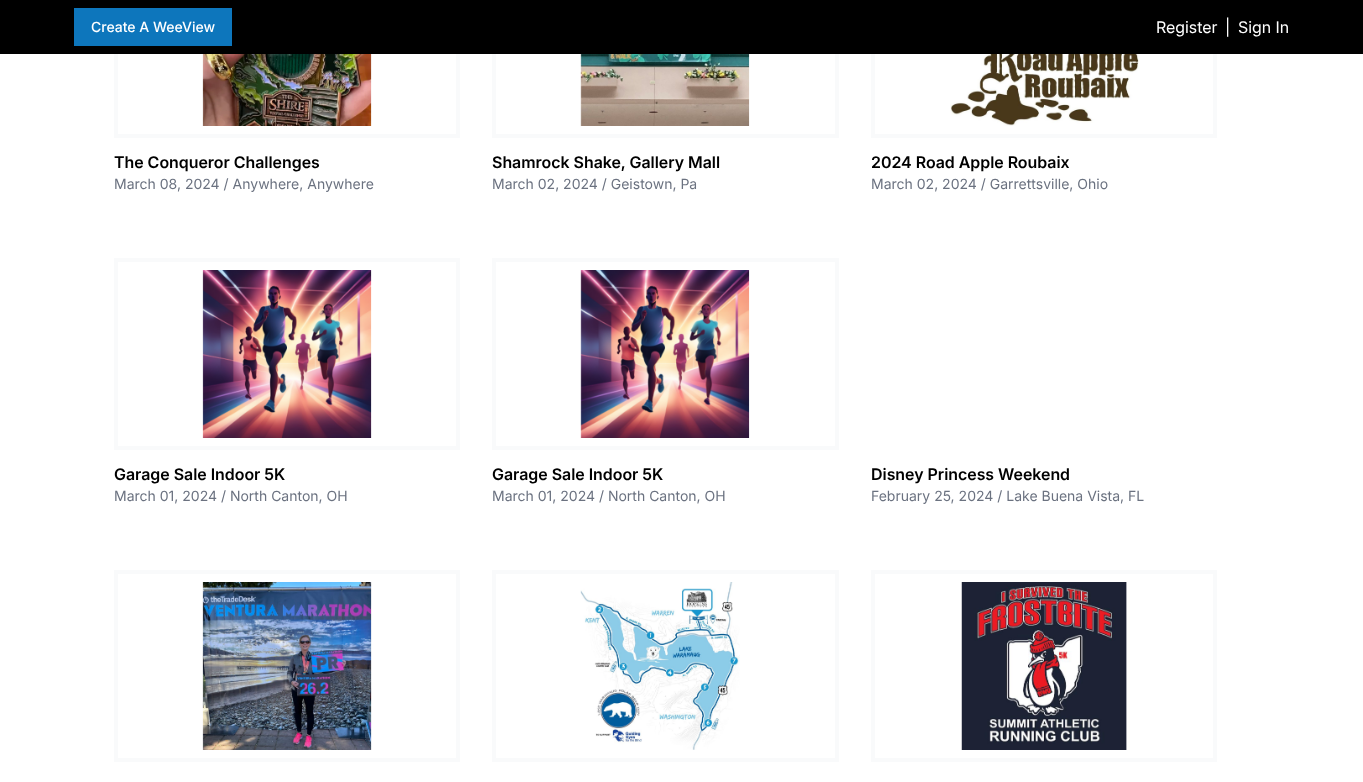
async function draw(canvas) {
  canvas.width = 1363
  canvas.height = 782
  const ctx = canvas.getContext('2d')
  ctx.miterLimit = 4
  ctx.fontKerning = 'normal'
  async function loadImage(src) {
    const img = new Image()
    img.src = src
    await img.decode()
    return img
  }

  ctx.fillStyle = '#fff'
  ctx.fillRect(0, 0, 1363, 782)
  ctx.strokeStyle = '#f9fafb'
  ctx.lineWidth = 4
  ctx.strokeRect(116, -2, 342, 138)
  ctx.strokeRect(494, -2, 343, 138)
  ctx.strokeRect(873, -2, 342, 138)
  ctx.fillStyle = '#000'
  ctx.fillRect(0, 0, 1363, 54)
  ctx.fillStyle = '#0d76bc'
  ctx.fillRect(74, 8, 158, 38)
  ctx.font = '500 14px Inter'
  ctx.fillStyle = '#fff'
  ctx.fillText('Create A WeeView', 91, 32)
  ctx.font = '16px "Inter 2"'
  ctx.fillText('Register', 1156, 33)
  ctx.fillText('|', 1225, 33)
  ctx.fillText('Sign In', 1238, 33)
  ctx.drawImage(await loadImage('image0.png'), 202, 54, 170, 72)
  ctx.font = '600 16px Inter'
  ctx.fillStyle = '#000'
  ctx.fillText('The Conqueror Challenges', 114, 168)
  ctx.font = '14px Inter'
  ctx.fillStyle = '#6b7280'
  ctx.fillText('March 08, 2024 / Anywhere, Anywhere', 114, 189)
  ctx.drawImage(await loadImage('image1.png'), 580, 54, 170, 72)
  ctx.font = '600 16px Inter'
  ctx.fillStyle = '#000'
  ctx.fillText('Shamrock Shake, Gallery Mall', 492, 168)
  ctx.font = '14px Inter'
  ctx.fillStyle = '#6b7280'
  ctx.fillText('March 02, 2024 / Geistown, Pa', 492, 189)
  ctx.drawImage(await loadImage('image2.png'), 950, 54, 189, 72)
  ctx.font = '600 16px Inter'
  ctx.fillStyle = '#000'
  ctx.fillText('2024 Road Apple Roubaix', 871, 168)
  ctx.font = '14px Inter'
  ctx.fillStyle = '#6b7280'
  ctx.fillText('March 02, 2024 / Garrettsville, Ohio', 871, 189)
  ctx.strokeRect(116, 260, 342, 188)
  ctx.drawImage(await loadImage('image3.png'), 202, 270, 170, 168)
  ctx.font = '600 16px Inter'
  ctx.fillStyle = '#000'
  ctx.fillText('Garage Sale Indoor 5K', 114, 480)
  ctx.font = '14px Inter'
  ctx.fillStyle = '#6b7280'
  ctx.fillText('March 01, 2024 / North Canton, OH', 114, 501)
  ctx.strokeRect(494, 260, 343, 188)
  ctx.drawImage(await loadImage('image4.png'), 580, 270, 170, 168)
  ctx.font = '600 16px Inter'
  ctx.fillStyle = '#000'
  ctx.fillText('Garage Sale Indoor 5K', 492, 480)
  ctx.font = '14px Inter'
  ctx.fillStyle = '#6b7280'
  ctx.fillText('March 01, 2024 / North Canton, OH', 492, 501)
  ctx.font = '600 16px Inter'
  ctx.fillStyle = '#000'
  ctx.fillText('Disney Princess Weekend', 871, 480)
  ctx.font = '14px Inter'
  ctx.fillStyle = '#6b7280'
  ctx.fillText('February 25, 2024 / Lake Buena Vista, FL', 871, 501)
  ctx.strokeRect(116, 572, 342, 188)
  ctx.drawImage(await loadImage('image5.png'), 202, 582, 170, 168)
  ctx.strokeRect(494, 572, 343, 188)
  ctx.drawImage(await loadImage('image6.png'), 580, 582, 160, 168)
  ctx.strokeRect(873, 572, 342, 188)
  ctx.drawImage(await loadImage('image7.png'), 961, 582, 166, 168)
}

draw(document.querySelector('canvas'))
